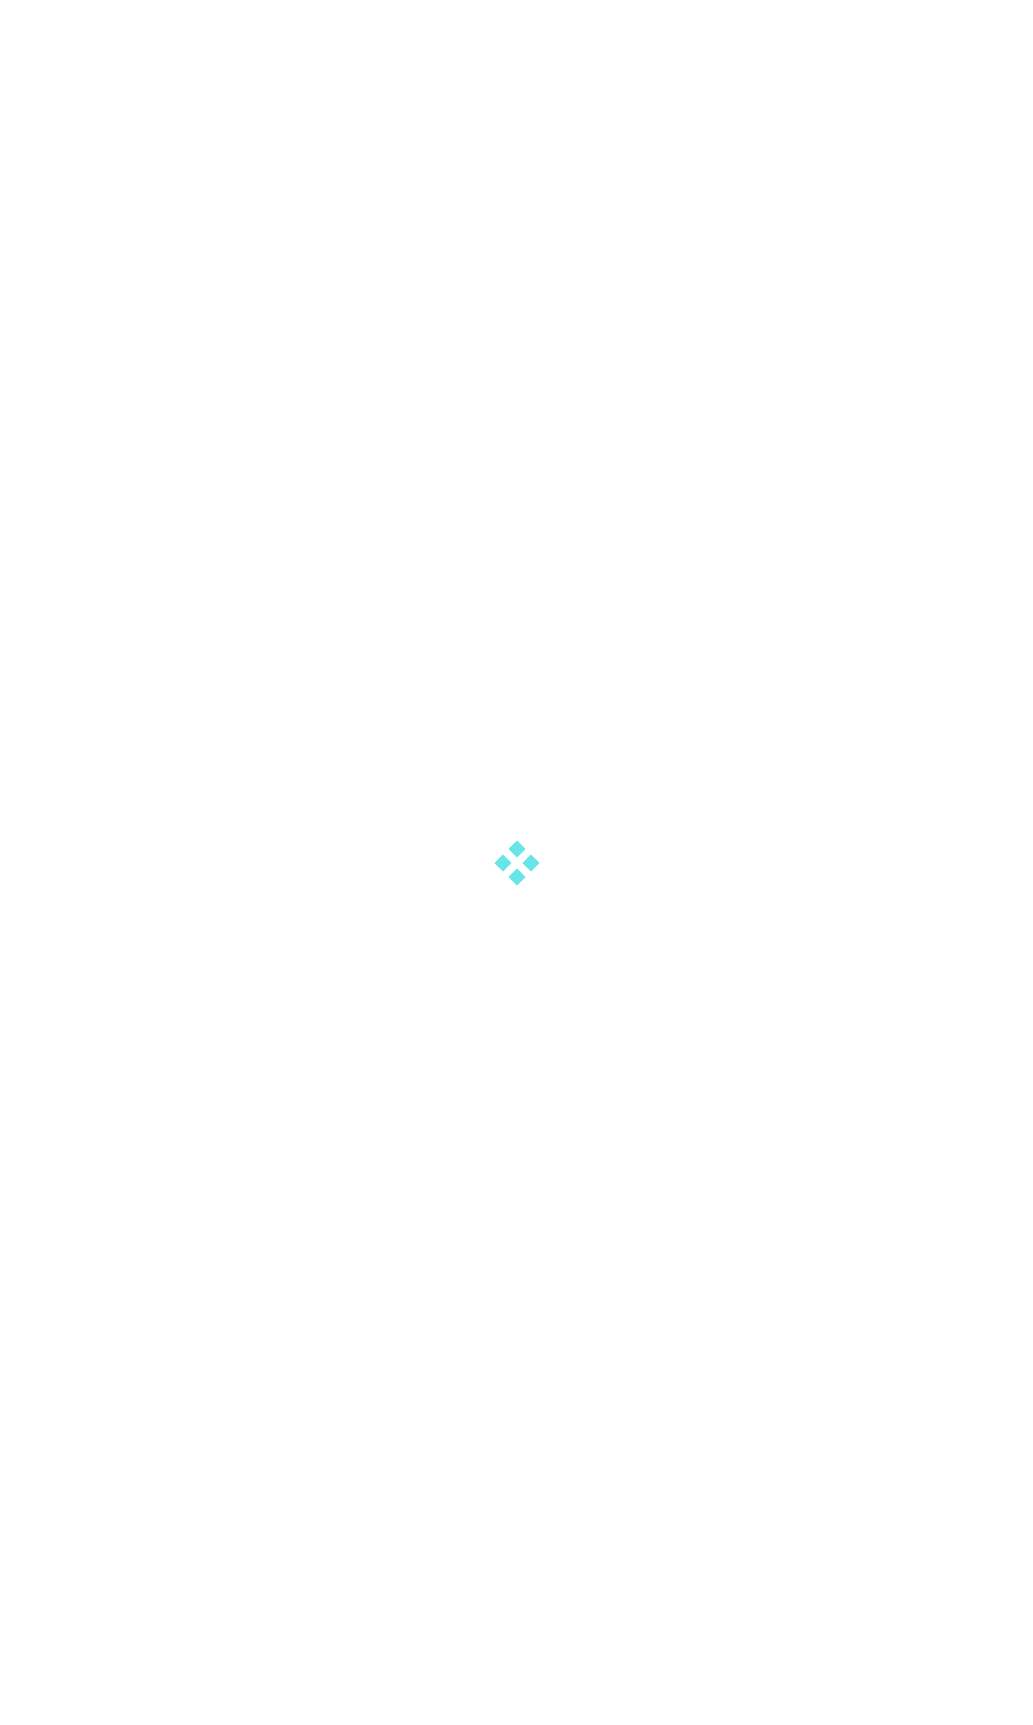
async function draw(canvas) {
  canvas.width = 1033
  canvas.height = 1725
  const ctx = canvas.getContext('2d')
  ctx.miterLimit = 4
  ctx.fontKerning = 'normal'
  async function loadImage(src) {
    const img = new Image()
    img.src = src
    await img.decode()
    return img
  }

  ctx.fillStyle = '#fff'
  ctx.fillRect(0, 0, 1033, 1725)
  ctx.drawImage(await loadImage('image0.png'), 494, 840, 46, 46)
}

draw(document.querySelector('canvas'))
